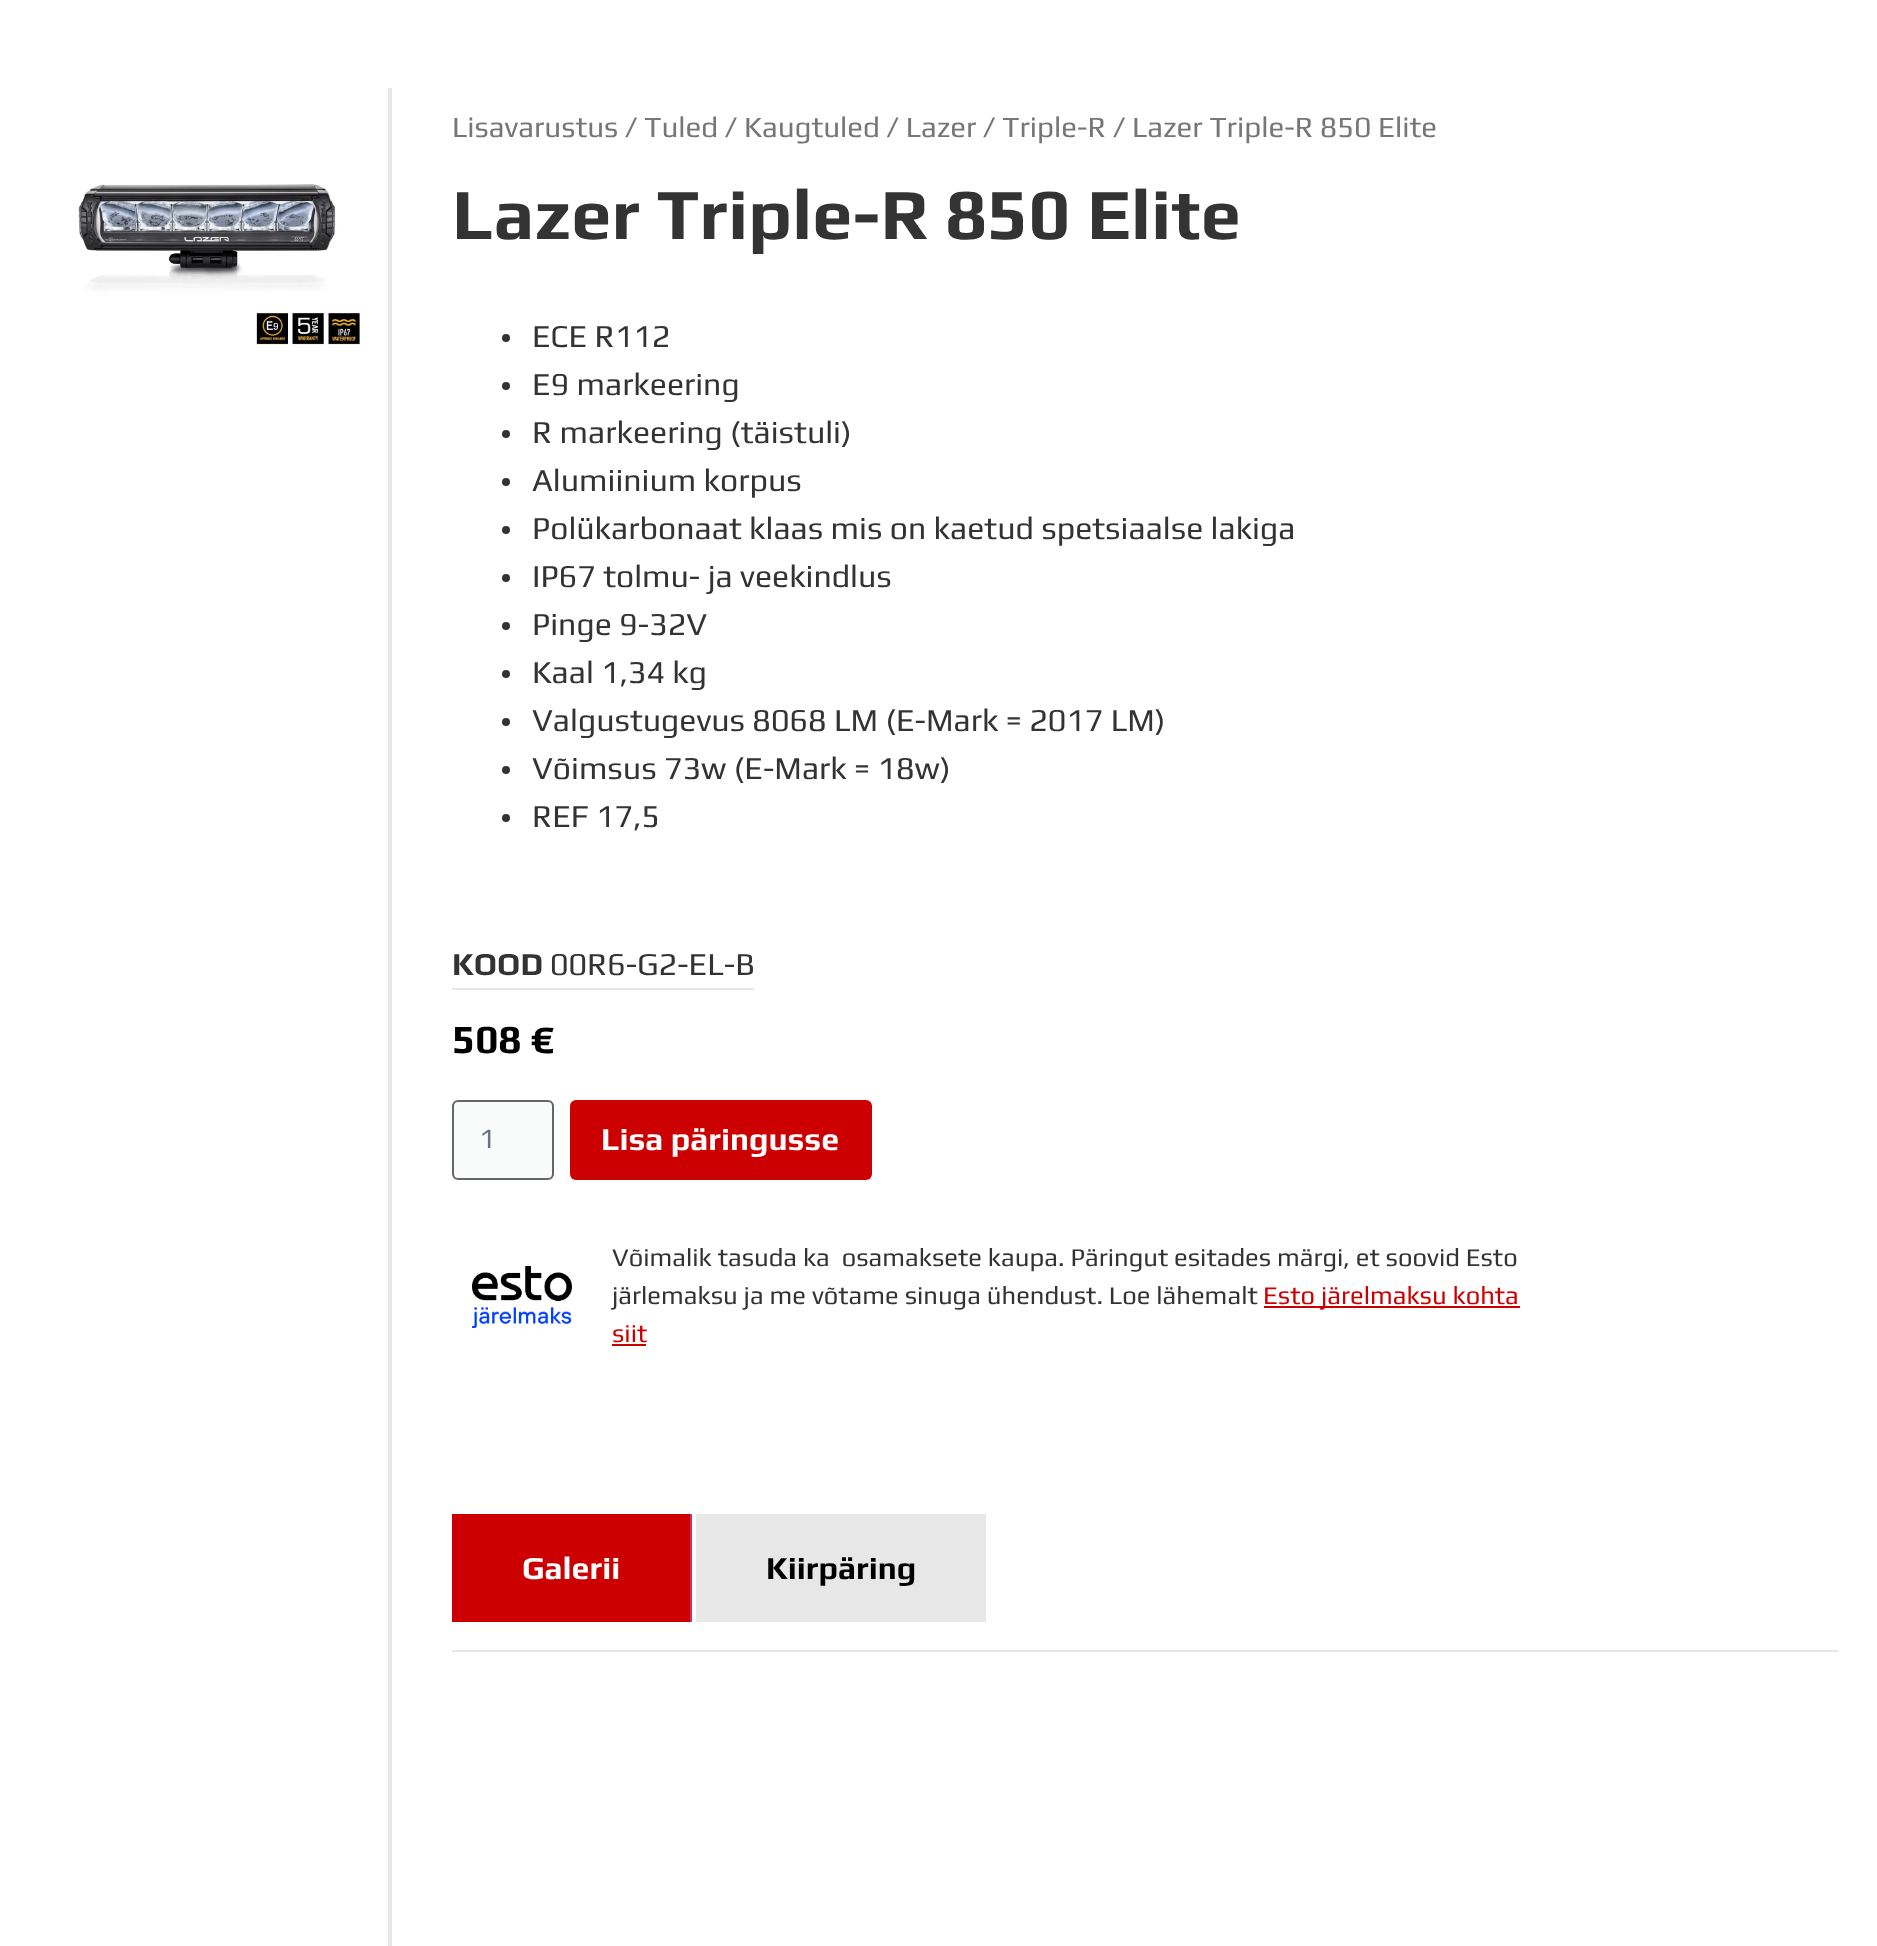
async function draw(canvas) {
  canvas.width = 1877
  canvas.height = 1946
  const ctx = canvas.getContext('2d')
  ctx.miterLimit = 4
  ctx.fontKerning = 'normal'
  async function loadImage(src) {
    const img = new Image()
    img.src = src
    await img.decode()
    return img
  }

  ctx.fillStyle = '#fff'
  ctx.fillRect(0, 0, 1877, 1946)
  ctx.drawImage(await loadImage('image0.png'), 78, 184, 282, 161)
  ctx.fillStyle = '#e7e7e7'
  ctx.fillRect(388, 88, 4, 1858)
  ctx.font = '29.45px Play'
  ctx.fillStyle = '#767676'
  ctx.fillText('Lisavarustus / Tuled / Kaugtuled / Lazer / Triple-R / Lazer Triple-R 850 Elite', 452, 137)
  ctx.font = 'bold 72px Play'
  ctx.fillStyle = '#333'
  ctx.fillText('Lazer Triple-R 850 Elite', 452, 239)
  ctx.beginPath()
  ctx.arc(506, 338, 4, 0, 2 * Math.PI)
  ctx.fill()
  ctx.font = '32px Play'
  ctx.fillText('ECE R112', 532, 347)
  ctx.beginPath()
  ctx.arc(506, 386, 4, 0, 2 * Math.PI)
  ctx.fill()
  ctx.fillText('E9 markeering', 532, 395)
  ctx.beginPath()
  ctx.arc(506, 434, 4, 0, 2 * Math.PI)
  ctx.fill()
  ctx.fillText('R markeering (täistuli)', 532, 443)
  ctx.beginPath()
  ctx.arc(506, 482, 4, 0, 2 * Math.PI)
  ctx.fill()
  ctx.fillText('Alumiinium korpus', 532, 491)
  ctx.beginPath()
  ctx.arc(506, 530, 4, 0, 2 * Math.PI)
  ctx.fill()
  ctx.fillText('Polükarbonaat klaas mis on kaetud spetsiaalse lakiga', 532, 539)
  ctx.beginPath()
  ctx.arc(506, 578, 4, 0, 2 * Math.PI)
  ctx.fill()
  ctx.fillText('IP67 tolmu- ja veekindlus', 532, 587)
  ctx.beginPath()
  ctx.arc(506, 626, 4, 0, 2 * Math.PI)
  ctx.fill()
  ctx.fillText('Pinge 9-32V', 532, 635)
  ctx.beginPath()
  ctx.arc(506, 674, 4, 0, 2 * Math.PI)
  ctx.fill()
  ctx.fillText('Kaal 1,34 kg', 532, 683)
  ctx.beginPath()
  ctx.arc(506, 722, 4, 0, 2 * Math.PI)
  ctx.fill()
  ctx.fillText('Valgustugevus 8068 LM (E-Mark = 2017 LM)', 532, 731)
  ctx.beginPath()
  ctx.arc(506, 770, 4, 0, 2 * Math.PI)
  ctx.fill()
  ctx.fillText('Võimsus 73w (E-Mark = 18w)', 532, 779)
  ctx.beginPath()
  ctx.arc(506, 818, 4, 0, 2 * Math.PI)
  ctx.fill()
  ctx.fillText('REF 17,5', 532, 827)
  ctx.fillStyle = '#e7e7e7'
  ctx.fillRect(452, 988, 302, 2)
  ctx.font = 'bold 32px Play'
  ctx.fillStyle = '#333'
  ctx.fillText('KOOD', 452, 975)
  ctx.font = '32px Play'
  ctx.fillText('00R6-G2-EL-B', 550, 975)
  ctx.font = 'bold 40px Play'
  ctx.fillStyle = '#000'
  ctx.fillText('508 €', 452, 1053)
  ctx.fillStyle = '#f9fafa'
  ctx.beginPath()
  ctx.roundRect(453, 1101, 100, 78, 5)
  ctx.fill()
  ctx.strokeStyle = '#666'
  ctx.lineWidth = 2
  ctx.stroke()
  ctx.font = '28px Play'
  ctx.fillStyle = '#69727d'
  ctx.fillText('1', 479, 1148)
  ctx.fillStyle = '#c00'
  ctx.beginPath()
  ctx.roundRect(570, 1100, 302, 80, 6)
  ctx.fill()
  ctx.font = 'bold 32px Play'
  ctx.fillStyle = '#fff'
  ctx.fillText('Lisa päringusse', 601, 1150)
  ctx.drawImage(await loadImage('image1.png'), 472, 1266, 100, 62)
  ctx.font = '25.6px Play'
  ctx.fillStyle = '#333'
  ctx.fillText('Võimalik tasuda ka  osamaksete kaupa. Päringut esitades märgi, et soovid Esto', 612, 1266)
  ctx.fillText('järlemaksu ja me võtame sinuga ühendust. Loe lähemalt', 612, 1304)
  ctx.fillStyle = '#c00'
  ctx.fillRect(1264, 1306, 256, 2)
  ctx.fillText('Esto järelmaksu kohta', 1263, 1304)
  ctx.fillText('siit', 612, 1342)
  ctx.fillRect(612, 1344, 34, 2)
  ctx.fillRect(452, 1514, 238, 108)
  ctx.fillStyle = '#c36'
  ctx.fillRect(690, 1514, 2, 108)
  ctx.font = 'bold 32px Play'
  ctx.fillStyle = '#fff'
  ctx.fillText('Galerii', 522, 1579)
  ctx.fillStyle = '#e7e7e7'
  ctx.fillRect(696, 1514, 290, 108)
  ctx.fillStyle = '#000'
  ctx.fillText('Kiirpäring', 766, 1579)
  ctx.fillStyle = '#e7e7e7'
  ctx.fillRect(452, 1650, 1386, 2)
}

draw(document.querySelector('canvas'))
